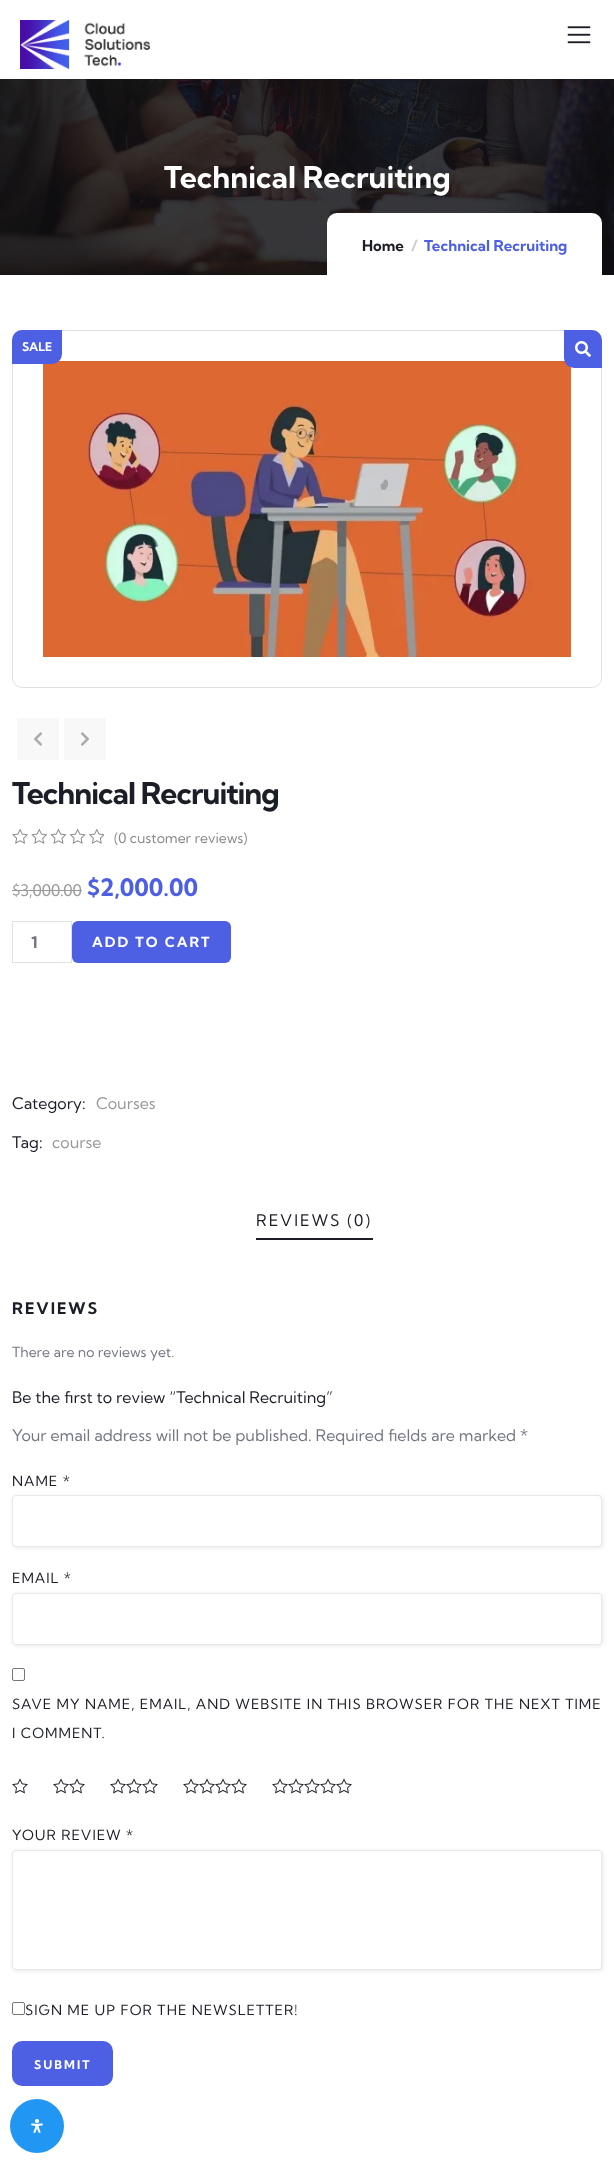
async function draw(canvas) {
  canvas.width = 614
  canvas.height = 2163
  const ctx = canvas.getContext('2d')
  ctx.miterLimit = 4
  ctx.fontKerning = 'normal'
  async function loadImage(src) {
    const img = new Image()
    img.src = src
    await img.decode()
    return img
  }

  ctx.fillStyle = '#fff'
  ctx.fillRect(0, 0, 614, 2163)
  ctx.drawImage(await loadImage('image0.png'), 20, 20, 130, 49)
  ctx.drawImage(await loadImage('image1.png'), 567, 26, 24, 18)
  ctx.drawImage(await loadImage('image2.png'), 0, 79, 614, 196)
  ctx.font = 'bold 30px Kumbh Sans'
  ctx.fillText('Technical Recruiting', 164, 188)
  ctx.beginPath()
  ctx.roundRect(327, 213, 275, 62, [10, 10, 0, 0])
  ctx.fill()
  ctx.font = 'bold 15px Kumbh Sans'
  ctx.fillStyle = '#1c1e27'
  ctx.fillText('Home', 362, 251)
  ctx.fillStyle = '#ccc'
  ctx.fillText('/', 411, 251)
  ctx.fillStyle = '#4d5fe3'
  ctx.fillText('Technical Recruiting', 424, 251)
  ctx.beginPath()
  ctx.roundRect(12.5, 330.5, 589, 357, 9.5)
  ctx.strokeStyle = '#dee2e6'
  ctx.stroke()
  ctx.drawImage(await loadImage('image3.png'), 43, 361, 528, 296)
  ctx.beginPath()
  ctx.roundRect(564, 330, 38, 38, [0, 10, 0, 10])
  ctx.fill()
  ctx.drawImage(await loadImage('image4.png'), 575, 341, 16, 16)
  ctx.beginPath()
  ctx.roundRect(12, 330, 50, 34, [10, 0, 10, 0])
  ctx.fill()
  ctx.font = 'bold 12px Kumbh Sans'
  ctx.fillStyle = '#fff'
  ctx.fillText('SALE', 22, 351)
  ctx.fillStyle = '#f8f8f8'
  ctx.fillRect(17, 718, 42, 42)
  ctx.drawImage(await loadImage('image5.png'), 34, 732, 8, 14)
  ctx.fillRect(64, 718, 42, 42)
  ctx.drawImage(await loadImage('image6.png'), 81, 732, 8, 14)
  ctx.letterSpacing = '-1px'
  ctx.font = 'bold 30px Kumbh Sans'
  ctx.fillStyle = '#1c1e27'
  ctx.fillText('Technical Recruiting', 12, 804)
  ctx.drawImage(await loadImage('image7.png'), 12, 828, 92, 16)
  ctx.letterSpacing = '0px'
  ctx.font = '14px Kumbh Sans'
  ctx.fillStyle = '#898989'
  ctx.fillText('(0 customer reviews)', 114, 843)
  ctx.font = '16px Kumbh Sans'
  ctx.fillStyle = '#999'
  ctx.fillText('$3,000.00', 12, 896)
  ctx.fillRect(12, 890, 70, 1)
  ctx.font = 'bold 24px Kumbh Sans'
  ctx.fillStyle = '#4d5fe3'
  ctx.fillText('$2,000.00', 87, 896)
  ctx.strokeRect(12.5, 921.5, 59, 41)
  ctx.font = 'bold 16px Kumbh Sans'
  ctx.fillStyle = '#757783'
  ctx.fillText('1', 31, 948)
  ctx.fillStyle = '#4d5fe3'
  ctx.beginPath()
  ctx.roundRect(72, 921, 159, 42, 6)
  ctx.fill()
  ctx.letterSpacing = '2px'
  ctx.font = 'bold 14px Kumbh Sans'
  ctx.fillStyle = '#fff'
  ctx.fillText('ADD TO CART', 92, 947)
  ctx.letterSpacing = '0px'
  ctx.font = '16px Kumbh Sans'
  ctx.fillStyle = '#1c1e27'
  ctx.fillText('Category:', 12, 1109)
  ctx.fillStyle = '#999'
  ctx.fillText('Courses', 96, 1109)
  ctx.fillStyle = '#1c1e27'
  ctx.fillText('Tag:', 12, 1148)
  ctx.fillStyle = '#999'
  ctx.fillText('course', 52, 1148)
  ctx.letterSpacing = '2px'
  ctx.fillStyle = '#1c1e27'
  ctx.fillText('REVIEWS (0)', 256, 1226)
  ctx.fillRect(256, 1238, 117, 2)
  ctx.font = 'bold 16px Kumbh Sans'
  ctx.fillText('REVIEWS', 12, 1314)
  ctx.letterSpacing = '0px'
  ctx.font = '14px Kumbh Sans'
  ctx.fillStyle = '#757783'
  ctx.fillText('There are no reviews yet.', 12, 1357)
  ctx.font = '16px Kumbh Sans'
  ctx.fillStyle = '#1c1e27'
  ctx.fillText('Be the first to review “Technical Recruiting”', 12, 1403)
  ctx.fillStyle = '#757783'
  ctx.fillText('Your email address will not be published. Required fields are marked *', 12, 1441)
  ctx.letterSpacing = '1px'
  ctx.font = '14px Kumbh Sans'
  ctx.fillStyle = '#1c1e27'
  ctx.fillText('NAME *', 12, 1486)
  ctx.fillStyle = '#00000017'
  ctx.filter = 'blur(2px)'
  ctx.beginPath()
  ctx.roundRect(13, 1496, 590, 52, 4)
  ctx.fill()
  ctx.filter = 'none'
  ctx.fillStyle = '#fff'
  ctx.beginPath()
  ctx.roundRect(12.5, 1495.5, 589, 51, 3.5)
  ctx.fill()
  ctx.strokeStyle = '#e8e8e8'
  ctx.stroke()
  ctx.fillStyle = '#1c1e27'
  ctx.fillText('EMAIL *', 12, 1583)
  ctx.fillStyle = '#00000017'
  ctx.filter = 'blur(2px)'
  ctx.beginPath()
  ctx.roundRect(13, 1594, 590, 52, 4)
  ctx.fill()
  ctx.filter = 'none'
  ctx.fillStyle = '#fff'
  ctx.beginPath()
  ctx.roundRect(12.5, 1593.5, 589, 51, 3.5)
  ctx.fill()
  ctx.stroke()
  ctx.beginPath()
  ctx.roundRect(12.5, 1668.5, 12, 12, 1.5)
  ctx.strokeStyle = '#767676'
  ctx.stroke()
  ctx.fillStyle = '#1c1e27'
  ctx.fillText('SAVE MY NAME, EMAIL, AND WEBSITE IN THIS BROWSER FOR THE NEXT TIME', 12, 1709)
  ctx.fillText('I COMMENT.', 12, 1738)
  ctx.drawImage(await loadImage('image8.png'), 12, 1778, 16, 16)
  ctx.drawImage(await loadImage('image9.png'), 53, 1778, 32, 16)
  ctx.drawImage(await loadImage('image10.png'), 110, 1778, 48, 16)
  ctx.drawImage(await loadImage('image11.png'), 183, 1778, 64, 16)
  ctx.drawImage(await loadImage('image12.png'), 272, 1778, 80, 16)
  ctx.fillText('YOUR REVIEW *', 12, 1840)
  ctx.fillStyle = '#00000017'
  ctx.filter = 'blur(2px)'
  ctx.beginPath()
  ctx.roundRect(13, 1851, 590, 120, 4)
  ctx.fill()
  ctx.filter = 'none'
  ctx.fillStyle = '#fff'
  ctx.beginPath()
  ctx.roundRect(12.5, 1850.5, 589, 119, 3.5)
  ctx.fill()
  ctx.strokeStyle = '#e8e8e8'
  ctx.stroke()
  ctx.beginPath()
  ctx.roundRect(12.5, 2002.5, 12, 12, 1.5)
  ctx.strokeStyle = '#767676'
  ctx.stroke()
  ctx.fillStyle = '#1c1e27'
  ctx.fillText('SIGN ME UP FOR THE NEWSLETTER!', 25, 2015)
  ctx.fillStyle = '#4d5fe3'
  ctx.beginPath()
  ctx.roundRect(12, 2041, 101, 45, 10)
  ctx.fill()
  ctx.letterSpacing = '2px'
  ctx.font = 'bold 12px Kumbh Sans'
  ctx.fillStyle = '#fff'
  ctx.fillText('SUBMIT', 34, 2069)
  ctx.fillStyle = '#2196f3'
  ctx.beginPath()
  ctx.arc(37, 2126, 27, 0, 2 * Math.PI)
  ctx.fill()
  ctx.drawImage(await loadImage('image13.png'), 31, 2119, 12, 14)
}

draw(document.querySelector('canvas'))
